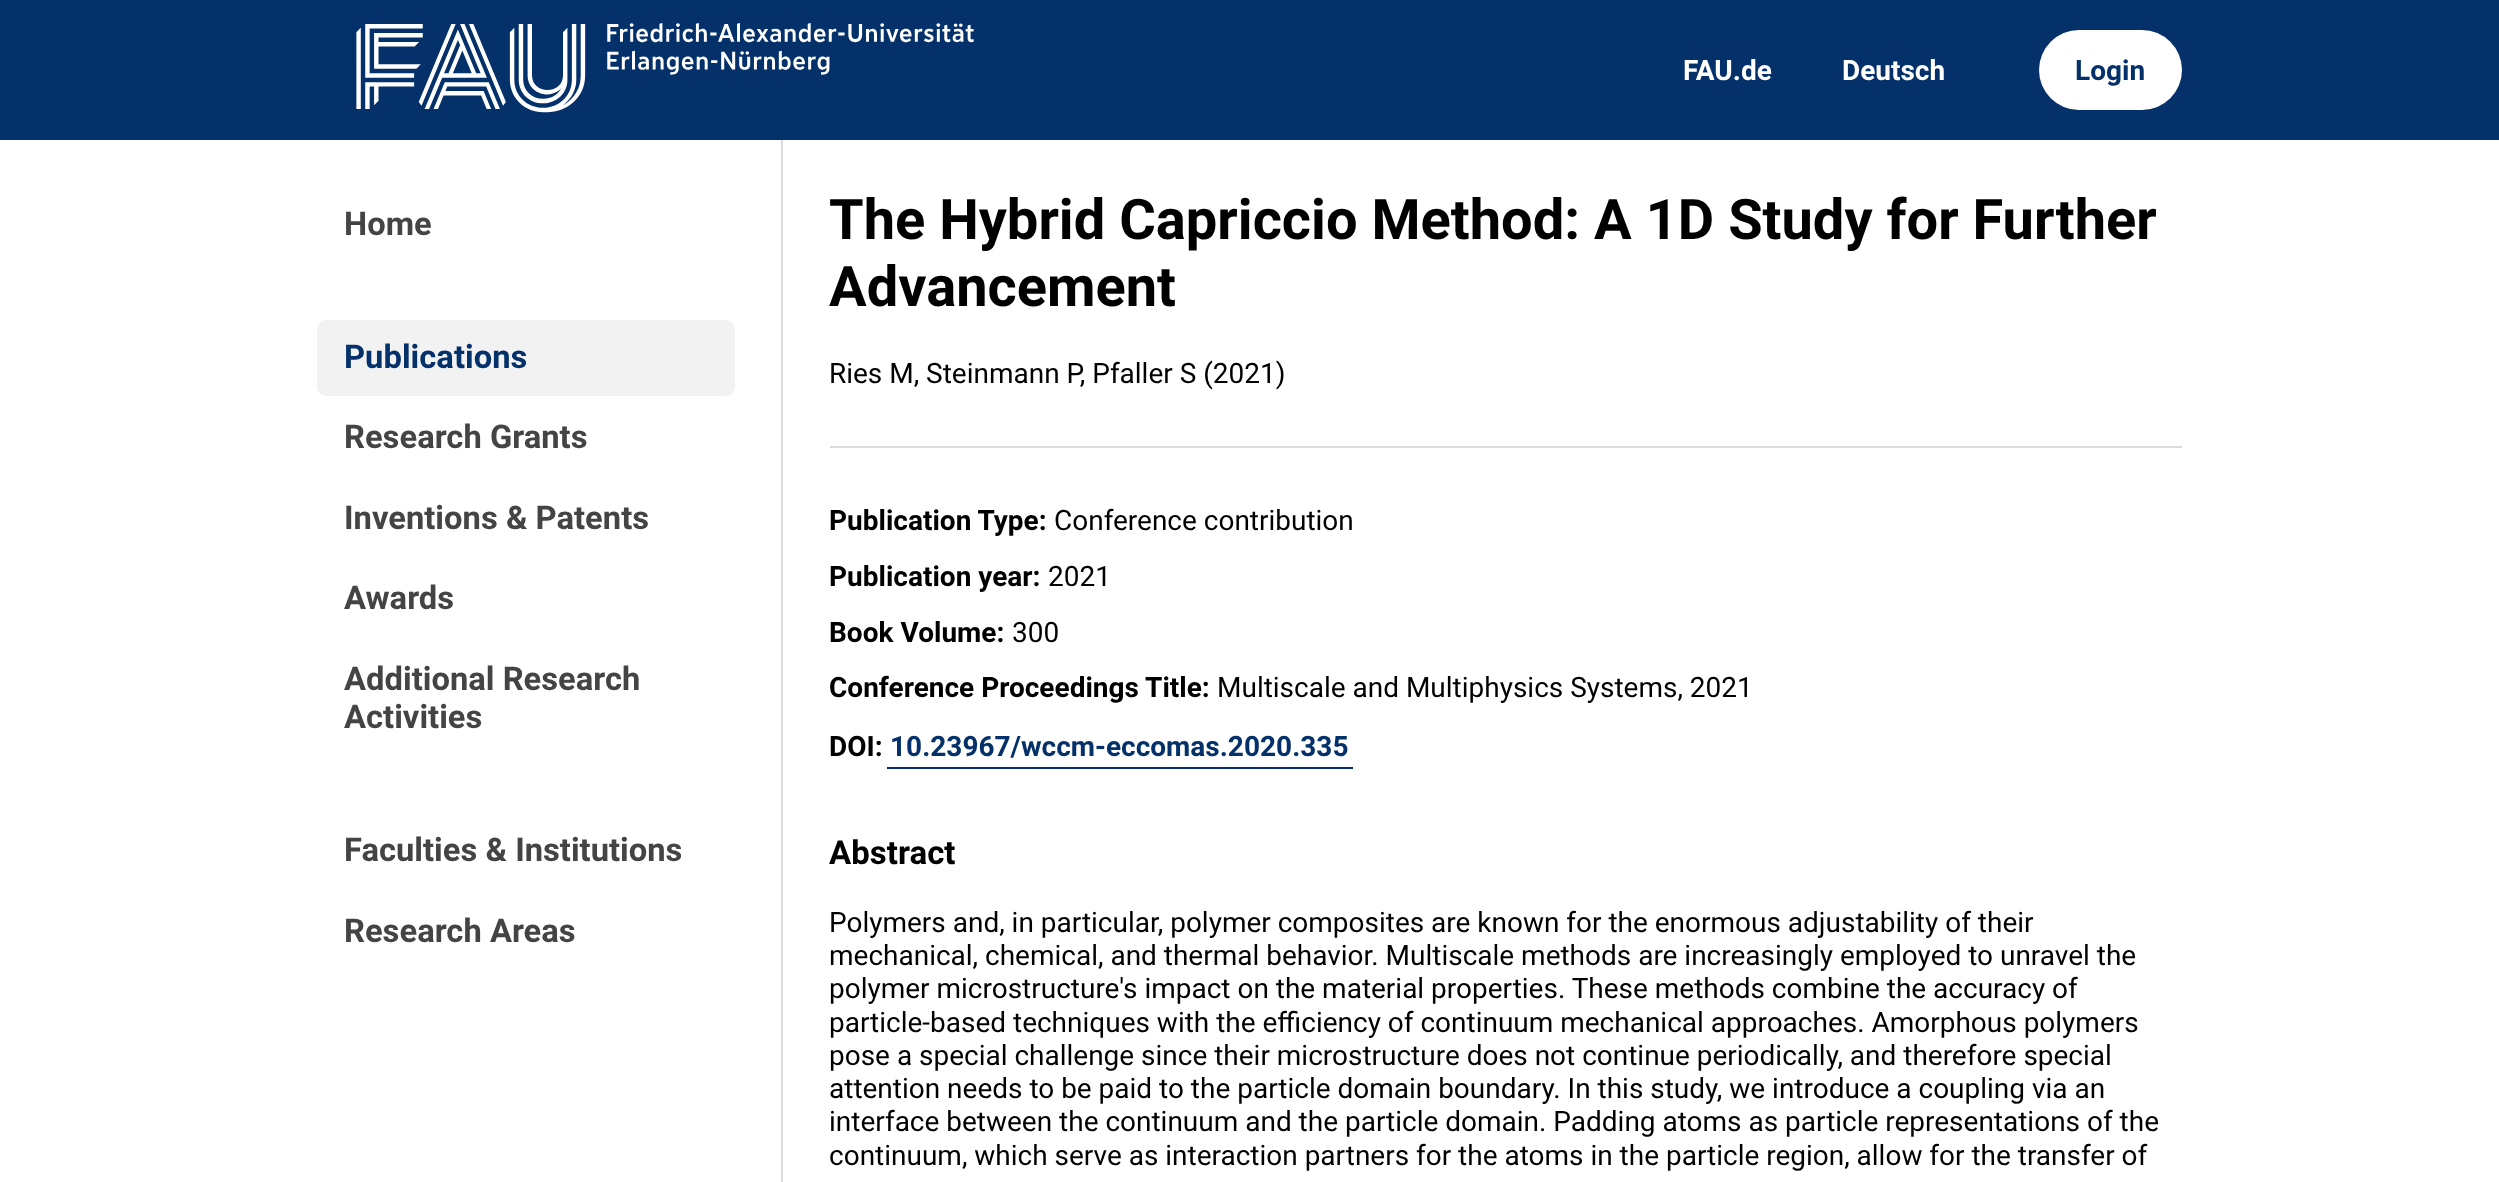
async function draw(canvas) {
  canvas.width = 2499
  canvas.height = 1182
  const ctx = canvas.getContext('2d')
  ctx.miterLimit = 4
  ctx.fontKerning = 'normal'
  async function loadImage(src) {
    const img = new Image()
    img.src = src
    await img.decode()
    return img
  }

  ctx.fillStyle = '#fff'
  ctx.fillRect(0, 0, 2499, 1182)
  ctx.fillStyle = '#04316a'
  ctx.fillRect(0, 0, 2499, 140)
  ctx.drawImage(await loadImage('image0.png'), 356, 23, 618, 90)
  ctx.font = 'bold 28px Roboto'
  ctx.fillStyle = '#fff'
  ctx.fillText('FAU.de', 1683, 80)
  ctx.fillText('Deutsch', 1842, 80)
  ctx.beginPath()
  ctx.roundRect(2039, 30, 143, 80, 40)
  ctx.fill()
  ctx.fillStyle = '#04316a'
  ctx.fillText('Login', 2075, 80)
  ctx.fillStyle = '#ddd'
  ctx.fillRect(781, 140, 2, 1042)
  ctx.font = 'bold 32.75px Roboto'
  ctx.fillStyle = '#444'
  ctx.fillText('Home', 344, 235)
  ctx.fillStyle = '#f2f2f2'
  ctx.beginPath()
  ctx.roundRect(317, 320, 418, 76, 9)
  ctx.fill()
  ctx.fillStyle = '#04316a'
  ctx.fillText('Publications', 344, 368)
  ctx.fillStyle = '#444'
  ctx.fillText('Research Grants', 344, 448)
  ctx.fillText('Inventions & Patents', 344, 529)
  ctx.fillText('Awards', 344, 609)
  ctx.fillText('Additional Research', 344, 690)
  ctx.fillText('Activities', 344, 728)
  ctx.fillText('Faculties & Institutions', 344, 861)
  ctx.fillText('Research Areas', 344, 942)
  ctx.font = 'bold 56px Roboto'
  ctx.fillStyle = '#000'
  ctx.fillText('The Hybrid Capriccio Method: A 1D Study for Further', 829, 239)
  ctx.fillText('Advancement', 829, 306)
  ctx.font = '28px Roboto'
  ctx.fillText('Ries M, Steinmann P, Pfaller S (2021)', 829, 383)
  ctx.fillStyle = '#ddd'
  ctx.fillRect(830, 446, 1352, 2)
  ctx.font = 'bold 28px Roboto'
  ctx.fillStyle = '#000'
  ctx.fillText('Publication Type:', 829, 530)
  ctx.font = '28px Roboto'
  ctx.fillText('Conference contribution', 1054, 530)
  ctx.font = 'bold 28px Roboto'
  ctx.fillText('Publication year:', 829, 586)
  ctx.font = '28px Roboto'
  ctx.fillText('2021', 1048, 586)
  ctx.font = 'bold 28px Roboto'
  ctx.fillText('Book Volume:', 829, 642)
  ctx.font = '28px Roboto'
  ctx.fillText('300', 1012, 642)
  ctx.font = 'bold 28px Roboto'
  ctx.fillText('Conference Proceedings Title:', 829, 697)
  ctx.font = '28px Roboto'
  ctx.fillText('Multiscale and Multiphysics Systems, 2021', 1217, 697)
  ctx.font = 'bold 28px Roboto'
  ctx.fillText('DOI:', 829, 756)
  ctx.fillStyle = '#04316a'
  ctx.fillText('10.23967/wccm-eccomas.2020.335', 890, 756)
  ctx.fillRect(887, 767, 466, 2)
  ctx.font = 'bold 33px Roboto'
  ctx.fillStyle = '#000'
  ctx.fillText('Abstract', 829, 864)
  ctx.font = '28px Roboto'
  ctx.fillText('Polymers and, in particular, polymer composites are known for the enormous adjustability of their', 829, 932)
  ctx.fillText('mechanical, chemical, and thermal behavior. Multiscale methods are increasingly employed to unravel the', 829, 965)
  ctx.fillText('polymer microstructure\'s impact on the material properties. These methods combine the accuracy of', 829, 998)
  ctx.fillText('particle-based techniques with the efficiency of continuum mechanical approaches. Amorphous polymers', 829, 1032)
  ctx.fillText('pose a special challenge since their microstructure does not continue periodically, and therefore special', 829, 1065)
  ctx.fillText('attention needs to be paid to the particle domain boundary. In this study, we introduce a coupling via an', 829, 1098)
  ctx.fillText('interface between the continuum and the particle domain. Padding atoms as particle representations of the', 829, 1131)
  ctx.fillText('continuum, which serve as interaction partners for the atoms in the particle region, allow for the transfer of', 829, 1165)
}

draw(document.querySelector('canvas'))
